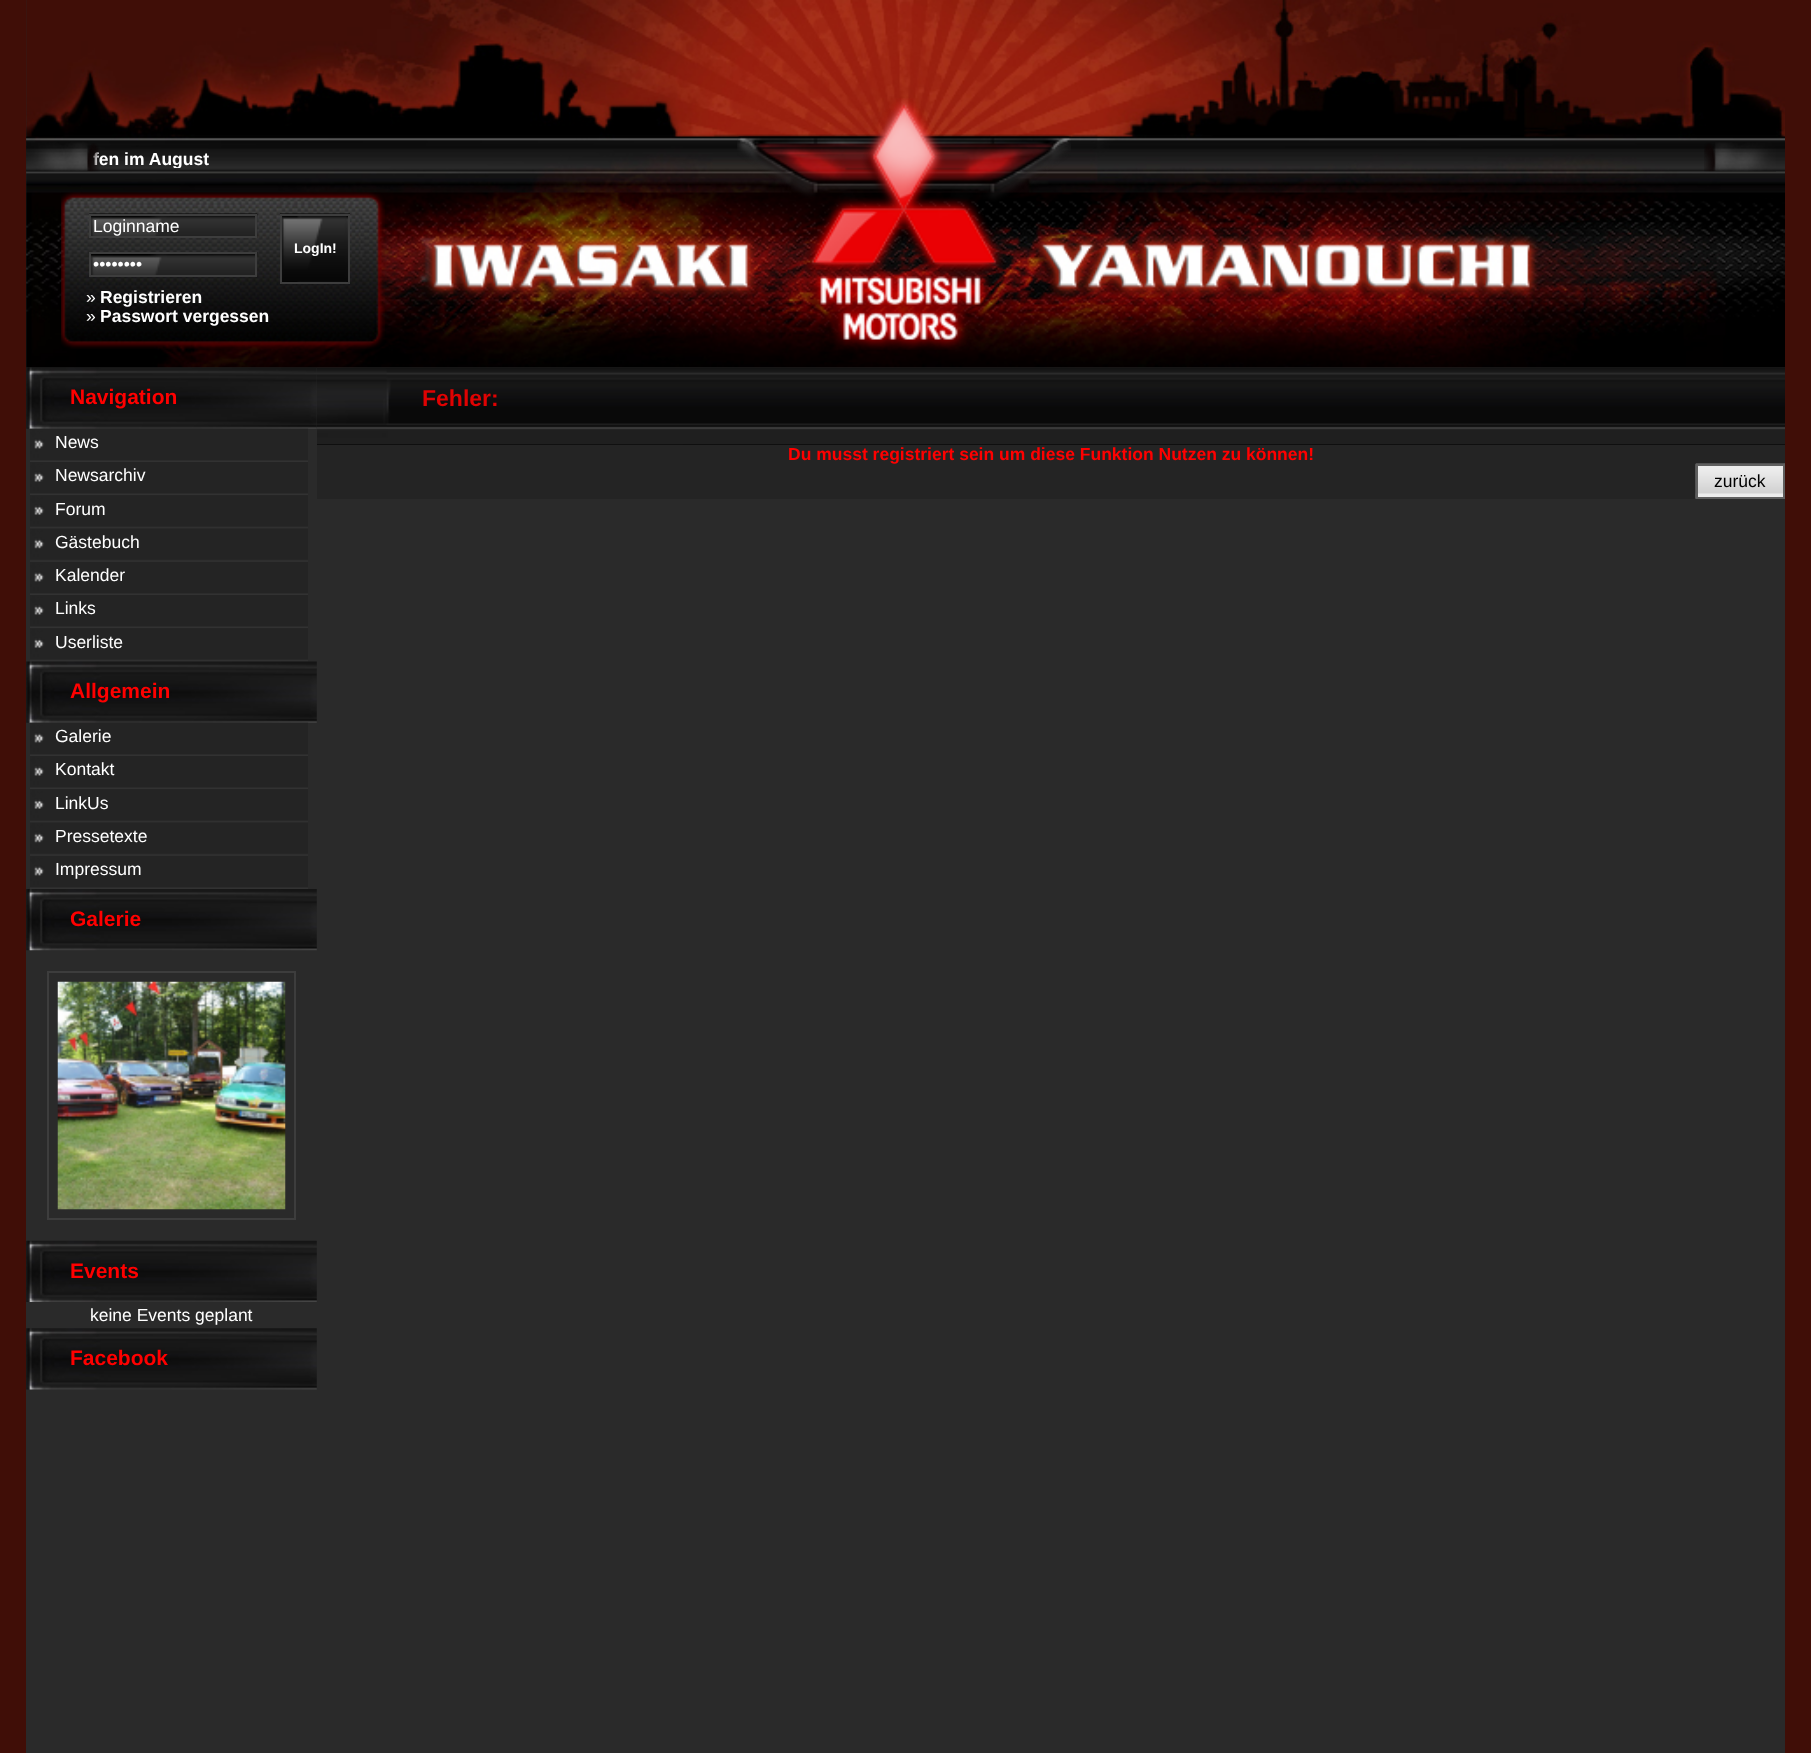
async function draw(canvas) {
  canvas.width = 1811
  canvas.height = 1753
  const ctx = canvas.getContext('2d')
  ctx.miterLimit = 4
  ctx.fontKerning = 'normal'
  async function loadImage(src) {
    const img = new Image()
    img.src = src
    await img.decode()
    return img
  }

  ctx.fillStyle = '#400e07'
  ctx.fillRect(0, 0, 1811, 1753)
  ctx.fillStyle = '#2a2a2a'
  ctx.fillRect(26, 0, 1759, 1753)
  ctx.drawImage(await loadImage('image0.png'), 26, 0, 1759, 368)
  ctx.save()
  ctx.beginPath()
  ctx.rect(26, 149, 1750, 19)
  ctx.clip()
  ctx.font = 'bold 17.5px Liberation Sans'
  ctx.fillStyle = '#fff'
  ctx.fillText('fen im August', 93, 165)
  ctx.restore()
  ctx.drawImage(await loadImage('image1.png'), 26, 136, 74, 36)
  ctx.drawImage(await loadImage('image2.png'), 737, 98, 334, 252)
  ctx.drawImage(await loadImage('image3.png'), 1704, 142, 72, 30)
  ctx.drawImage(await loadImage('image4.png'), 61, 192, 324, 157)
  ctx.drawImage(await loadImage('image5.png'), 89, 213, 169, 25)
  ctx.strokeStyle = '#3d3d3d'
  ctx.lineWidth = 2
  ctx.strokeRect(90, 215, 166, 22)
  ctx.font = '17.5px Liberation Sans'
  ctx.fillStyle = '#fff'
  ctx.fillText('Loginname', 93, 232)
  ctx.drawImage(await loadImage('image6.png'), 280, 213, 70, 69)
  ctx.strokeRect(281, 215, 68, 68)
  ctx.font = 'bold 14px Liberation Sans'
  ctx.fillText('LogIn!', 294, 253)
  ctx.drawImage(await loadImage('image7.png'), 91, 252, 167, 25)
  ctx.strokeRect(90, 253, 166, 23)
  ctx.font = '17.5px Liberation Sans'
  ctx.fillText('••••••••', 93, 270)
  ctx.fillText('»', 86, 303)
  ctx.font = 'bold 17.5px Liberation Sans'
  ctx.fillText('Registrieren', 100, 303)
  ctx.font = '17.5px Liberation Sans'
  ctx.fillText('»', 86, 322)
  ctx.font = 'bold 17.5px Liberation Sans'
  ctx.fillText('Passwort vergessen', 100, 322)
  ctx.drawImage(await loadImage('image8.png'), 26, 367, 291, 62)
  ctx.font = 'bold 21px Liberation Sans'
  ctx.fillStyle = '#f00'
  ctx.fillText('Navigation', 70, 404)
  ctx.drawImage(await loadImage('image9.png'), 30, 428, 278, 34)
  ctx.font = '17.5px Liberation Sans'
  ctx.fillStyle = '#fff'
  ctx.fillText('News', 55, 448)
  ctx.drawImage(await loadImage('image10.png'), 30, 462, 278, 33)
  ctx.fillText('Newsarchiv', 55, 481)
  ctx.drawImage(await loadImage('image11.png'), 30, 495, 278, 34)
  ctx.fillText('Forum', 55, 515)
  ctx.drawImage(await loadImage('image12.png'), 30, 528, 278, 34)
  ctx.fillText('Gästebuch', 55, 548)
  ctx.drawImage(await loadImage('image13.png'), 30, 562, 278, 33)
  ctx.fillText('Kalender', 55, 581)
  ctx.drawImage(await loadImage('image10.png'), 30, 595, 278, 33)
  ctx.fillText('Links', 55, 614)
  ctx.drawImage(await loadImage('image11.png'), 30, 628, 278, 34)
  ctx.fillText('Userliste', 55, 648)
  ctx.drawImage(await loadImage('image14.png'), 26, 661, 291, 62)
  ctx.font = 'bold 21px Liberation Sans'
  ctx.fillStyle = '#f00'
  ctx.fillText('Allgemein', 70, 698)
  ctx.drawImage(await loadImage('image9.png'), 30, 722, 278, 34)
  ctx.font = '17.5px Liberation Sans'
  ctx.fillStyle = '#fff'
  ctx.fillText('Galerie', 55, 742)
  ctx.drawImage(await loadImage('image10.png'), 30, 756, 278, 33)
  ctx.fillText('Kontakt', 55, 775)
  ctx.drawImage(await loadImage('image11.png'), 30, 789, 278, 34)
  ctx.fillText('LinkUs', 55, 809)
  ctx.drawImage(await loadImage('image12.png'), 30, 822, 278, 34)
  ctx.fillText('Pressetexte', 55, 842)
  ctx.drawImage(await loadImage('image13.png'), 30, 856, 278, 33)
  ctx.fillText('Impressum', 55, 875)
  ctx.drawImage(await loadImage('image15.png'), 26, 889, 291, 62)
  ctx.font = 'bold 21px Liberation Sans'
  ctx.fillStyle = '#f00'
  ctx.fillText('Galerie', 70, 926)
  ctx.strokeRect(48, 972, 247, 247)
  ctx.drawImage(await loadImage('image16.png'), 57, 981, 229, 229)
  ctx.drawImage(await loadImage('image17.png'), 26, 1240, 291, 62)
  ctx.fillText('Events', 70, 1278)
  ctx.font = '17.5px Liberation Sans'
  ctx.fillStyle = '#fff'
  ctx.fillText('keine Events geplant', 90, 1321)
  ctx.drawImage(await loadImage('image18.png'), 26, 1328, 291, 62)
  ctx.font = 'bold 21px Liberation Sans'
  ctx.fillStyle = '#f00'
  ctx.fillText('Facebook', 70, 1365)
  ctx.fillStyle = '#242424'
  ctx.fillRect(317, 445, 1468, 54)
  ctx.fillStyle = '#000'
  ctx.fillRect(317, 444, 1468, 1)
  ctx.drawImage(await loadImage('image19.png'), 317, 368, 1468, 77)
  ctx.font = 'bold 23px Liberation Sans'
  ctx.fillStyle = '#df0202'
  ctx.fillText('Fehler:', 422, 406)
  ctx.font = 'bold 17.5px Liberation Sans'
  ctx.fillStyle = '#f00'
  ctx.fillText('Du musst registriert sein um diese Funktion Nutzen zu können!', 788, 460)
  ctx.drawImage(await loadImage('image20.png'), 1695, 463, 90, 36)
  ctx.strokeStyle = '#5f5f5f'
  ctx.strokeRect(1697, 465, 87, 33)
  ctx.font = '17.5px Liberation Sans'
  ctx.fillStyle = '#000'
  ctx.fillText('zurück', 1714, 487)
}

draw(document.querySelector('canvas'))
